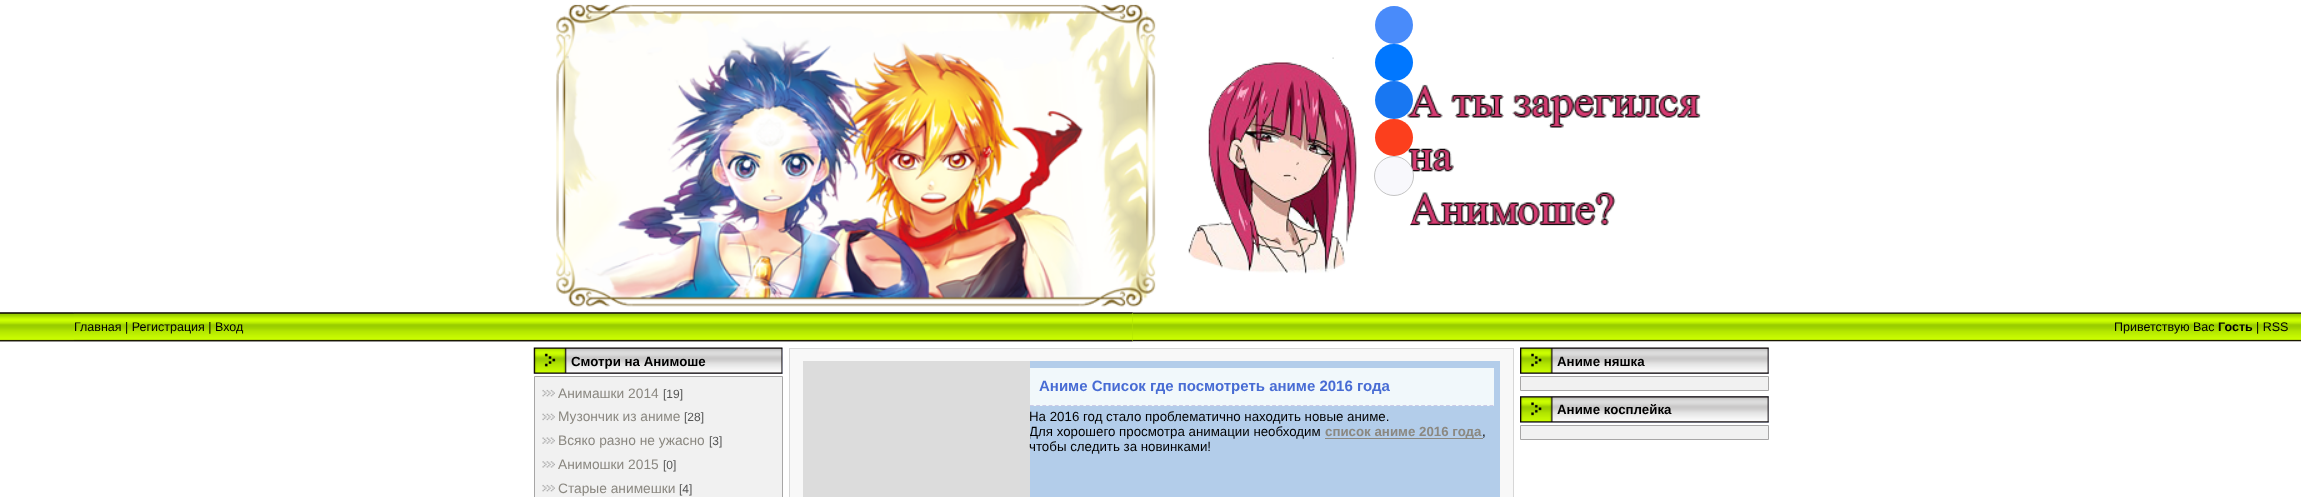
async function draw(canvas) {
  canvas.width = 2301
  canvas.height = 497
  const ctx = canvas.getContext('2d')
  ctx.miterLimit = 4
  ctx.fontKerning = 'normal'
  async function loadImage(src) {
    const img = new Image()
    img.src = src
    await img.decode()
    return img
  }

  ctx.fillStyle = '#fff'
  ctx.fillRect(0, 0, 2301, 497)
  ctx.drawImage(await loadImage('image0.png'), 556, 4, 1145, 303)
  ctx.fillStyle = '#498bfa'
  ctx.beginPath()
  ctx.arc(1394, 25, 19, 0, 2 * Math.PI)
  ctx.fill()
  ctx.fillStyle = '#07f'
  ctx.beginPath()
  ctx.roundRect(1375, 44, 38, 37, 18.5)
  ctx.fill()
  ctx.fillStyle = '#1877f2'
  ctx.beginPath()
  ctx.arc(1394, 100, 19, 0, 2 * Math.PI)
  ctx.fill()
  ctx.fillStyle = '#fc3f1d'
  ctx.beginPath()
  ctx.roundRect(1375, 119, 38, 37, 18.5)
  ctx.fill()
  ctx.fillStyle = '#f8f8fc'
  ctx.beginPath()
  ctx.arc(1394, 176, 19.5, 0, 2 * Math.PI)
  ctx.fill()
  ctx.strokeStyle = '#c4c4c4'
  ctx.stroke()
  ctx.fillStyle = '#fff'
  ctx.beginPath()
  ctx.arc(1394, 215, 19, 0, 2 * Math.PI)
  ctx.fill()
  ctx.drawImage(await loadImage('image1.png'), 0, 312, 2301, 30)
  ctx.fillStyle = '#b0e300'
  ctx.fillRect(1132, 313, 1, 28)
  ctx.drawImage(await loadImage('image3.png'), 73, 312, 1060, 30)
  ctx.drawImage(await loadImage('image2.png'), 0, 312, 74, 30)
  ctx.font = '12.5px Liberation Sans'
  ctx.fillStyle = '#000'
  ctx.fillText('Главная | Регистрация | Вход', 74, 331)
  ctx.fillText('Приветствую Вас', 2114, 331)
  ctx.font = 'bold 12.5px Liberation Sans'
  ctx.fillText('Гость', 2218, 331)
  ctx.font = '12.5px Liberation Sans'
  ctx.fillText('| RSS', 2256, 331)
  ctx.fillStyle = '#d4dff7'
  ctx.fillRect(534, 348, 249, 26)
  ctx.drawImage(await loadImage('image4.png'), 533, 347, 250, 27)
  ctx.font = 'bold 13.3px Liberation Sans'
  ctx.fillStyle = '#000'
  ctx.fillText('Смотри на Анимоше', 571, 366)
  ctx.fillStyle = '#f1f1f1'
  ctx.beginPath()
  ctx.rect(534.5, 376.5, 248, 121)
  ctx.fill()
  ctx.strokeStyle = '#a7a6a6'
  ctx.stroke()
  ctx.drawImage(await loadImage('image5.png'), 542, 389, 13, 8)
  ctx.font = '13.75px Liberation Sans'
  ctx.fillStyle = '#8b8881'
  ctx.fillText('Анимашки 2014', 558, 398)
  ctx.font = '12px Liberation Sans'
  ctx.fillStyle = '#555'
  ctx.fillText('[19]', 663, 398)
  ctx.drawImage(await loadImage('image6.png'), 542, 413, 13, 8)
  ctx.font = '13.75px Liberation Sans'
  ctx.fillStyle = '#8b8881'
  ctx.fillText('Музончик из аниме', 558, 421)
  ctx.font = '12px Liberation Sans'
  ctx.fillStyle = '#555'
  ctx.fillText('[28]', 684, 421)
  ctx.drawImage(await loadImage('image7.png'), 542, 437, 13, 7)
  ctx.font = '13.75px Liberation Sans'
  ctx.fillStyle = '#8b8881'
  ctx.fillText('Всяко разно не ужасно', 558, 445)
  ctx.font = '12px Liberation Sans'
  ctx.fillStyle = '#555'
  ctx.fillText('[3]', 709, 445)
  ctx.drawImage(await loadImage('image8.png'), 542, 461, 13, 7)
  ctx.font = '13.75px Liberation Sans'
  ctx.fillStyle = '#8b8881'
  ctx.fillText('Анимошки 2015', 558, 469)
  ctx.font = '12px Liberation Sans'
  ctx.fillStyle = '#555'
  ctx.fillText('[0]', 663, 469)
  ctx.drawImage(await loadImage('image5.png'), 542, 484, 13, 8)
  ctx.font = '13.75px Liberation Sans'
  ctx.fillStyle = '#8b8881'
  ctx.fillText('Старые анимешки', 558, 493)
  ctx.font = '12px Liberation Sans'
  ctx.fillStyle = '#555'
  ctx.fillText('[4]', 679, 493)
  ctx.strokeStyle = '#d7d7d7'
  ctx.strokeRect(789.5, 348.5, 724, 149)
  ctx.fillStyle = '#f8f8f8'
  ctx.fillRect(790, 349, 723, 148)
  ctx.fillStyle = '#dcdcdc'
  ctx.fillRect(803, 361, 227, 136)
  ctx.fillStyle = '#b3cdea'
  ctx.fillRect(1030, 361, 470, 136)
  ctx.fillStyle = '#f1f8fb'
  ctx.fillRect(1030, 368, 464, 38)
  ctx.beginPath()
  ctx.moveTo(1030, 405.5)
  ctx.lineTo(1494, 405.5)
  ctx.strokeStyle = '#cbcbe6'
  ctx.lineWidth = 1.2
  ctx.setLineDash([3.75, 2.46])
  ctx.stroke()
  ctx.font = 'bold 15px Liberation Sans'
  ctx.fillStyle = '#486cd4'
  ctx.fillText('Аниме Список где посмотреть аниме 2016 года', 1039, 391)
  ctx.font = '13.3px Liberation Sans'
  ctx.fillStyle = '#000'
  ctx.fillText('На 2016 год стало проблематично находить новые аниме.', 1029, 421)
  ctx.save()
  ctx.beginPath()
  ctx.rect(1030, 406, 464, 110)
  ctx.clip()
  ctx.fillText('Для хорошего просмотра анимации необходим', 1029, 436)
  ctx.restore()
  ctx.fillStyle = '#8b8881'
  ctx.fillRect(1325, 438, 158, 1)
  ctx.font = 'bold 13.3px Liberation Sans'
  ctx.fillText('список аниме 2016 года', 1325, 436)
  ctx.font = '13.3px Liberation Sans'
  ctx.fillStyle = '#000'
  ctx.fillText(',', 1482, 436)
  ctx.fillText('чтобы следить за новинками!', 1029, 451)
  ctx.fillStyle = '#d4dff7'
  ctx.fillRect(1520, 348, 249, 26)
  ctx.drawImage(await loadImage('image9.png'), 1520, 347, 249, 27)
  ctx.font = 'bold 13.3px Liberation Sans'
  ctx.fillStyle = '#000'
  ctx.fillText('Аниме няшка', 1557, 366)
  ctx.fillStyle = '#f1f1f1'
  ctx.beginPath()
  ctx.rect(1520.5, 376.5, 248, 14)
  ctx.fill()
  ctx.strokeStyle = '#a7a6a6'
  ctx.lineWidth = 1
  ctx.setLineDash([])
  ctx.stroke()
  ctx.fillStyle = '#d4dff7'
  ctx.fillRect(1520, 396, 249, 27)
  ctx.drawImage(await loadImage('image10.png'), 1520, 396, 249, 27)
  ctx.fillStyle = '#000'
  ctx.fillText('Аниме косплейка', 1557, 414)
  ctx.fillStyle = '#f1f1f1'
  ctx.beginPath()
  ctx.rect(1520.5, 425.5, 248, 14)
  ctx.fill()
  ctx.stroke()
}

draw(document.querySelector('canvas'))
